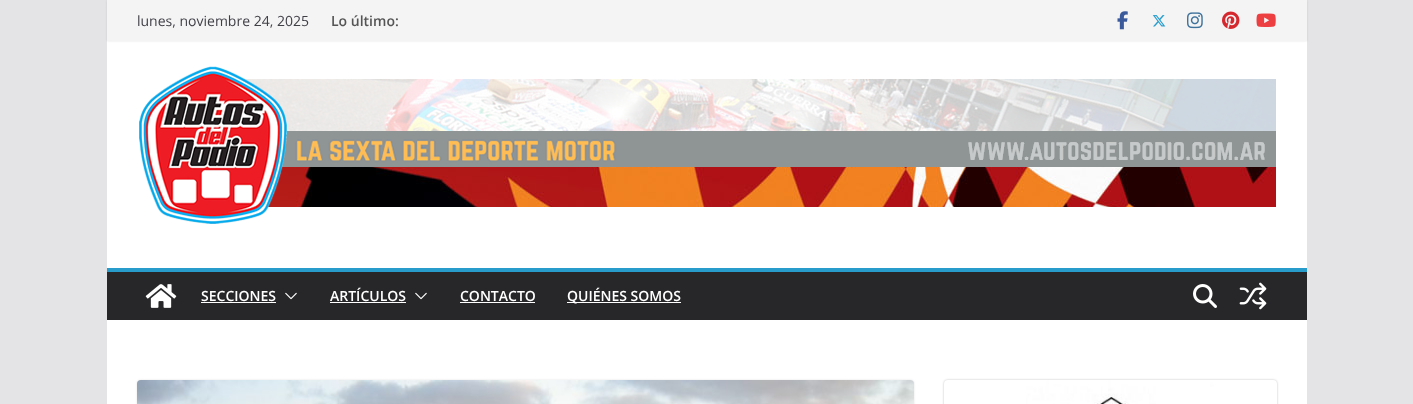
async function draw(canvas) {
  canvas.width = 1413
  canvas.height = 404
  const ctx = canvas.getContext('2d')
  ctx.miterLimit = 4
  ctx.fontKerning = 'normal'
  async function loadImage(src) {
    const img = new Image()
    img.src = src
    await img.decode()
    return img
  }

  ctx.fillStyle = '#e4e4e7'
  ctx.fillRect(0, 0, 1413, 404)
  ctx.fillStyle = '#fff'
  ctx.fillRect(107, 41, 1200, 227)
  ctx.fillStyle = '#0000001a'
  ctx.filter = 'blur(1px)'
  ctx.beginPath()
  ctx.rect(107, 0, 1200, 41)
  ctx.fill()
  ctx.filter = 'none'
  ctx.fillStyle = '#f4f4f5'
  ctx.fillRect(107, 0, 1200, 41)
  ctx.font = '14px Open Sans'
  ctx.fillStyle = '#3f3f46'
  ctx.fillText('lunes, noviembre 24, 2025', 137, 26)
  ctx.font = '600 14px Open Sans'
  ctx.fillStyle = '#555'
  ctx.fillText('Lo último:', 331, 26)
  ctx.drawImage(await loadImage('image0.png'), 1117, 11, 11, 19)
  ctx.drawImage(await loadImage('image1.png'), 1152, 15, 14, 12)
  ctx.drawImage(await loadImage('image2.png'), 1187, 12, 16, 17)
  ctx.drawImage(await loadImage('image3.png'), 1222, 11, 18, 18)
  ctx.drawImage(await loadImage('image4.png'), 1256, 13, 20, 14)
  ctx.drawImage(await loadImage('image5.png'), 139, 66, 1137, 158)
  ctx.fillStyle = '#27272a'
  ctx.fillRect(107, 272, 1200, 48)
  ctx.fillStyle = '#289dcc'
  ctx.fillRect(107, 268, 1200, 4)
  ctx.drawImage(await loadImage('image6.png'), 145, 284, 32, 24)
  ctx.fillStyle = '#fff'
  ctx.fillText('SECCIONES', 201, 301)
  ctx.fillRect(201, 302, 75, 1)
  ctx.drawImage(await loadImage('image7.png'), 285, 292, 12, 8)
  ctx.fillText('ARTÍCULOS', 330, 301)
  ctx.fillRect(330, 302, 76, 1)
  ctx.drawImage(await loadImage('image7.png'), 415, 292, 12, 8)
  ctx.fillText('CONTACTO', 460, 301)
  ctx.fillRect(460, 302, 75, 1)
  ctx.fillRect(567, 302, 114, 1)
  ctx.fillText('QUIÉNES SOMOS', 567, 301)
  ctx.drawImage(await loadImage('image8.png'), 1193, 284, 24, 24)
  ctx.drawImage(await loadImage('image9.png'), 1239, 282, 28, 28)
  ctx.fillRect(107, 320, 1200, 84)
  ctx.fillStyle = '#e4e4e7'
  ctx.filter = 'blur(1px)'
  ctx.beginPath()
  ctx.roundRect(137, 380, 777, 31, 4)
  ctx.fill()
  ctx.filter = 'none'
  ctx.drawImage(await loadImage('image10.png'), 137, 380, 777, 24)
  ctx.fillStyle = '#0000003d'
  ctx.filter = 'blur(1px)'
  ctx.beginPath()
  ctx.roundRect(944, 380, 333, 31, 4)
  ctx.fill()
  ctx.filter = 'none'
  ctx.drawImage(await loadImage('image11.png'), 944, 380, 333, 24)
}

draw(document.querySelector('canvas'))
